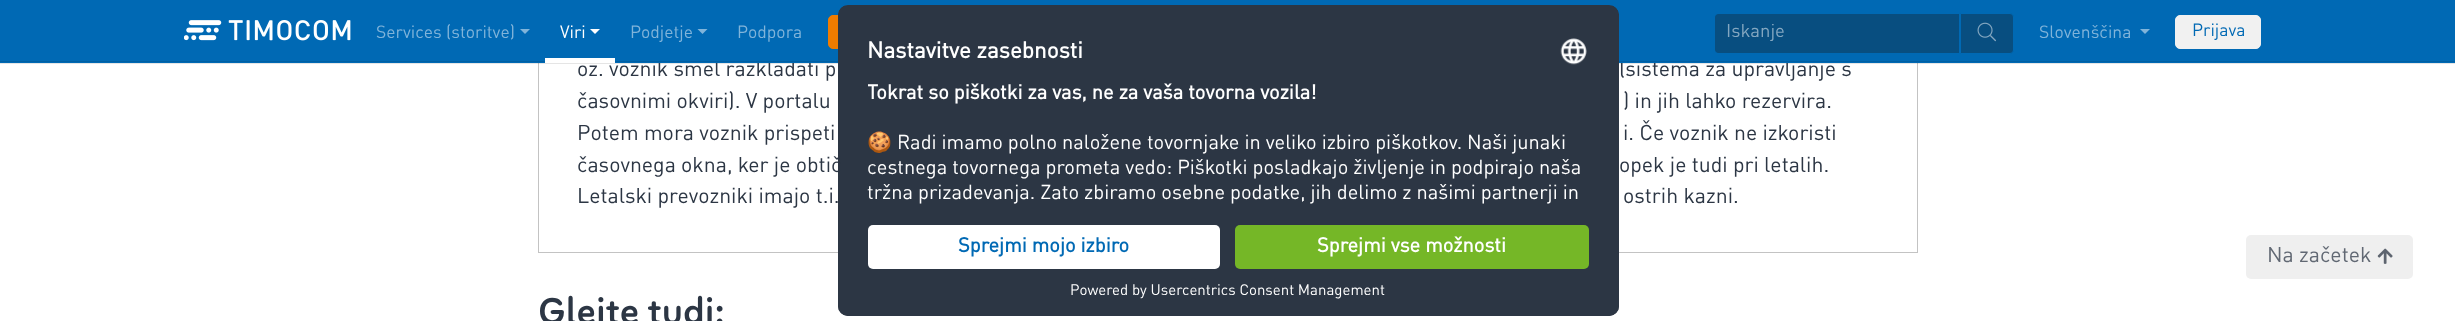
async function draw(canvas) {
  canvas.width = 2455
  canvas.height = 321
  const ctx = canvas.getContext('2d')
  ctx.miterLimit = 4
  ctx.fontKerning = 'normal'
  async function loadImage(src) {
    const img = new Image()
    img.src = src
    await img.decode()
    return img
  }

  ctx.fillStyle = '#fff'
  ctx.fillRect(0, 0, 2455, 321)
  ctx.strokeStyle = '#c3c3c3'
  ctx.strokeRect(538.5, -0.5, 1379, 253)
  ctx.fillStyle = '#0000001a'
  ctx.fillRect(0, 63, 2455, 1)
  ctx.font = '21.25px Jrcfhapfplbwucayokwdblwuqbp'
  ctx.fillStyle = '#2c3644'
  ctx.fillText('oz. voznik smel razkladati pr', 577, 76)
  ctx.fillText('(sistema za upravljanje s', 1619, 76)
  ctx.fillStyle = '#0069b4'
  ctx.fillRect(0, 0, 2455, 63)
  ctx.fillStyle = '#005fa2'
  ctx.fillRect(0, 61, 2455, 1)
  ctx.drawImage(await loadImage('image0.png'), 184, 20, 167, 21)
  ctx.font = '17.5px Jrcfhapfplbwucayokwdblwuqbp'
  ctx.fillStyle = '#80b4da'
  ctx.fillText('Services (storitve)', 376, 38)
  ctx.beginPath()
  ctx.moveTo(520, 29)
  ctx.lineTo(530, 29)
  ctx.lineTo(525, 34)
  ctx.closePath()
  ctx.fill()
  ctx.fillStyle = '#fff'
  ctx.fillRect(545, 58, 70, 5)
  ctx.fillText('Viri', 560, 38)
  ctx.beginPath()
  ctx.moveTo(590, 29)
  ctx.lineTo(600, 29)
  ctx.lineTo(595, 34)
  ctx.closePath()
  ctx.fill()
  ctx.fillStyle = '#80b4da'
  ctx.fillText('Podjetje', 630, 38)
  ctx.beginPath()
  ctx.moveTo(697.5, 29)
  ctx.lineTo(707.5, 29)
  ctx.lineTo(702.5, 34)
  ctx.closePath()
  ctx.fill()
  ctx.fillText('Podpora', 737, 38)
  ctx.fillStyle = '#f07c00'
  ctx.beginPath()
  ctx.roundRect(828.5, 15.5, 194, 33, 4.5)
  ctx.fill()
  ctx.strokeStyle = '#f07c00'
  ctx.stroke()
  ctx.fillStyle = '#084e80'
  ctx.beginPath()
  ctx.roundRect(1715, 14, 244, 39, [2.5, 0, 0, 2.5])
  ctx.fill()
  ctx.beginPath()
  ctx.roundRect(1714.5, 13.5, 245, 40, [3.5, 0, 0, 3.5])
  ctx.strokeStyle = '#0069b4'
  ctx.stroke()
  ctx.save()
  ctx.beginPath()
  ctx.rect(1725, 24, 224, 19)
  ctx.clip()
  ctx.font = '18.5px Jrcfhapfplbwucayokwdblwuqbp'
  ctx.fillStyle = '#84a7c0'
  ctx.fillText('Iskanje', 1726, 37)
  ctx.restore()
  ctx.beginPath()
  ctx.roundRect(1960.5, 13.5, 53, 40, [0, 3.5, 3.5, 0])
  ctx.fill()
  ctx.stroke()
  ctx.drawImage(await loadImage('image1.png'), 1977, 22, 19, 20)
  ctx.fillStyle = '#80b4da'
  ctx.fillText('Slovenščina', 2039, 38)
  ctx.beginPath()
  ctx.moveTo(2140, 29)
  ctx.lineTo(2150, 29)
  ctx.lineTo(2145, 34)
  ctx.closePath()
  ctx.fill()
  ctx.fillStyle = '#f1f1f1'
  ctx.beginPath()
  ctx.roundRect(2175.5, 15.5, 85, 33, 4.5)
  ctx.fill()
  ctx.strokeStyle = '#f1f1f1'
  ctx.stroke()
  ctx.fillStyle = '#0069b4'
  ctx.fillText('Prijava', 2192, 36)
  ctx.fillStyle = '#2c3644'
  ctx.beginPath()
  ctx.roundRect(838, 5, 781, 311, 10)
  ctx.fill()
  ctx.save()
  ctx.beginPath()
  ctx.roundRect(838, 5, 781, 311, 10)
  ctx.clip()
  ctx.beginPath()
  ctx.roundRect(838, 5, 781, 210, [10, 10, 0, 0])
  ctx.clip()
  ctx.fillRect(838, 6, 781, 209)
  ctx.restore()
  ctx.font = 'bold 22.5px Jrcfhapfplbwucayokwdblwuqbp'
  ctx.fillStyle = '#fff'
  ctx.fillText('Nastavitve zasebnosti', 867, 58)
  ctx.drawImage(await loadImage('image2.png'), 1560, 38, 27, 27)
  ctx.save()
  ctx.beginPath()
  ctx.rect(868, 76, 721, 139)
  ctx.clip()
  ctx.font = 'bold 20px Jrcfhapfplbwucayokwdblwuqbp'
  ctx.fillText('Tokrat so piškotki za vas, ne za vaša tovorna vozila!', 867, 99)
  ctx.font = '20px Noto Color Emoji'
  ctx.fillText('🍪', 867, 149)
  ctx.restore()
  ctx.font = '20px Jrcfhapfplbwucayokwdblwuqbp'
  ctx.fillText('Radi imamo polno naložene tovornjake in veliko izbiro piškotkov. Naši junaki', 897, 149)
  ctx.fillText('cestnega tovornega prometa vedo: Piškotki posladkajo življenje in podpirajo naša', 867, 174)
  ctx.fillText('tržna prizadevanja. Zato zbiramo osebne podatke, jih delimo z našimi partnerji in', 867, 199)
  ctx.fillStyle = '#2c3644'
  ctx.beginPath()
  ctx.roundRect(838, 215, 781, 101, [0, 0, 10, 10])
  ctx.fill()
  ctx.fillStyle = '#fff'
  ctx.beginPath()
  ctx.roundRect(868, 225, 352, 44, 5)
  ctx.fill()
  ctx.font = 'bold 20px Jrcfhapfplbwucayokwdblwuqbp'
  ctx.fillStyle = '#0069b4'
  ctx.fillText('Sprejmi mojo izbiro', 958, 252)
  ctx.fillStyle = '#75b727'
  ctx.beginPath()
  ctx.roundRect(1235, 225, 354, 44, 5)
  ctx.fill()
  ctx.fillStyle = '#fff'
  ctx.fillText('Sprejmi vse možnosti', 1317, 252)
  ctx.font = '15px Jrcfhapfplbwucayokwdblwuqbp'
  ctx.fillText('Powered by Usercentrics Consent Management', 1070, 295)
  ctx.font = '21.25px Jrcfhapfplbwucayokwdblwuqbp'
  ctx.fillStyle = '#2c3644'
  ctx.fillText('časovnimi okviri). V portalu', 577, 108)
  ctx.fillText(') in jih lahko rezervira.', 1623, 108)
  ctx.fillText('Potem mora voznik prispeti', 577, 140)
  ctx.fillText('i. Če voznik ne izkoristi', 1623, 140)
  ctx.fillText('časovnega okna, ker je obtič', 577, 172)
  ctx.fillText('opek je tudi pri letalih.', 1619, 172)
  ctx.fillText('Letalski prevozniki imajo t.i.', 577, 203)
  ctx.fillText('ostrih kazni.', 1623, 203)
  ctx.font = '500 37.5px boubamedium'
  ctx.fillText('Glejte tudi:', 538, 324)
  ctx.fillStyle = '#efefef'
  ctx.beginPath()
  ctx.roundRect(2246, 235, 167, 44, 5)
  ctx.fill()
  ctx.font = '21.25px Jrcfhapfplbwucayokwdblwuqbp'
  ctx.fillStyle = '#616873'
  ctx.fillText('Na začetek', 2267, 262)
  ctx.drawImage(await loadImage('image3.png'), 2377, 248, 16, 16)
}

draw(document.querySelector('canvas'))
